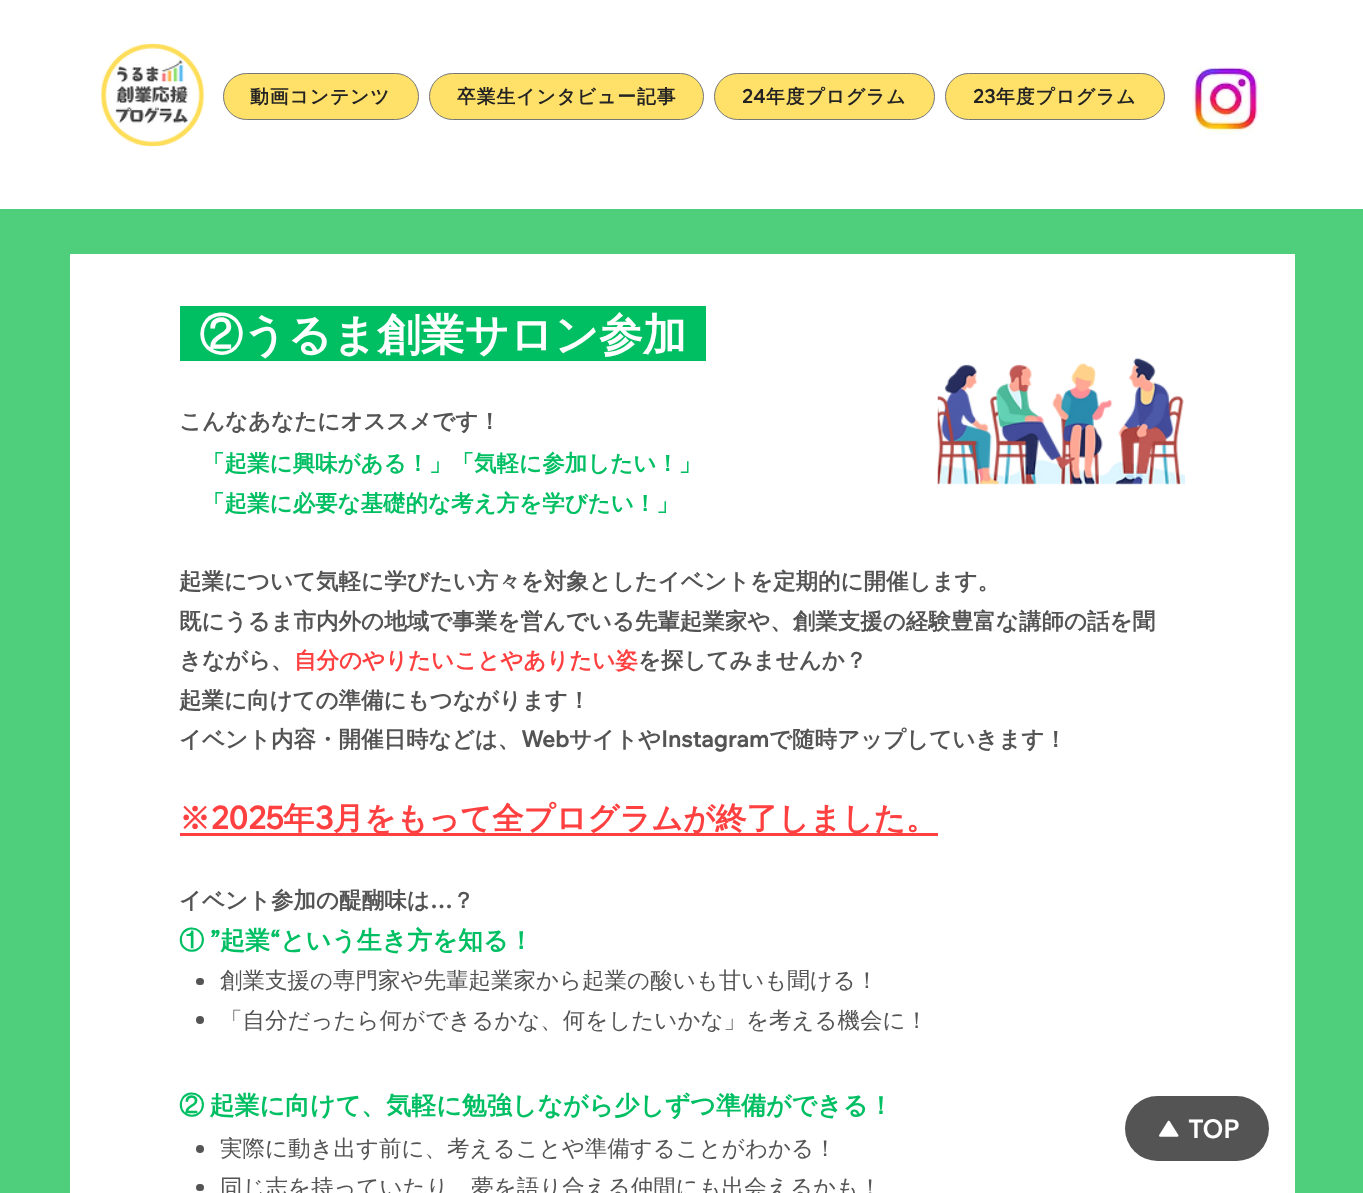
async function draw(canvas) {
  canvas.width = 1363
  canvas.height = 1193
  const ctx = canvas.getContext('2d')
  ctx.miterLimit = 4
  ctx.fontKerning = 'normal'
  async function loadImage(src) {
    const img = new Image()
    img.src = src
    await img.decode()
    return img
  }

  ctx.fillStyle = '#fff'
  ctx.fillRect(0, 0, 1363, 1193)
  ctx.drawImage(await loadImage('image0.png'), 101, 43, 103, 104)
  ctx.fillStyle = '#ffe16a'
  ctx.beginPath()
  ctx.roundRect(223.5, 73.5, 195, 46, 23)
  ctx.fill()
  ctx.strokeStyle = '#757575'
  ctx.stroke()
  ctx.letterSpacing = '1px'
  ctx.font = 'bold 18.75px WenQuanYi Zen Hei'
  ctx.fillStyle = '#242323'
  ctx.fillText('動画コンテンツ', 250, 103)
  ctx.fillStyle = '#ffe16a'
  ctx.beginPath()
  ctx.roundRect(429.5, 73.5, 274, 46, 23)
  ctx.fill()
  ctx.stroke()
  ctx.fillStyle = '#242323'
  ctx.fillText('卒業生インタビュー記事', 457, 103)
  ctx.fillStyle = '#ffe16a'
  ctx.beginPath()
  ctx.roundRect(714.5, 73.5, 220, 46, 23)
  ctx.fill()
  ctx.stroke()
  ctx.font = 'bold 18.75px Wix Madefor Text'
  ctx.fillStyle = '#242323'
  ctx.fillText('24', 742, 103)
  ctx.font = 'bold 18.75px WenQuanYi Zen Hei'
  ctx.fillText('年度プログラム', 766, 103)
  ctx.fillStyle = '#ffe16a'
  ctx.beginPath()
  ctx.roundRect(945.5, 73.5, 219, 46, 23)
  ctx.fill()
  ctx.stroke()
  ctx.font = 'bold 18.75px Wix Madefor Text'
  ctx.fillStyle = '#242323'
  ctx.fillText('23', 973, 103)
  ctx.font = 'bold 18.75px WenQuanYi Zen Hei'
  ctx.fillText('年度プログラム', 996, 103)
  ctx.drawImage(await loadImage('image1.png'), 1191, 67, 73, 68)
  ctx.fillStyle = '#4fce7c'
  ctx.fillRect(0, 209, 1363, 984)
  ctx.fillStyle = '#fff'
  ctx.fillRect(70, 254, 1225, 939)
  ctx.fillStyle = '#00bf63'
  ctx.fillRect(180, 306, 526, 55)
  ctx.letterSpacing = '0px'
  ctx.font = 'bold 43.75px WenQuanYi Zen Hei'
  ctx.fillStyle = '#fff'
  ctx.fillText('②うるま創業サロン参加', 199, 350)
  ctx.drawImage(await loadImage('image2.png'), 937, 357, 248, 128)
  ctx.font = 'bold 22.5px WenQuanYi Zen Hei'
  ctx.fillStyle = '#545454'
  ctx.fillText('こんなあなたにオススメです！', 179, 429)
  ctx.fillStyle = '#00bf63'
  ctx.fillText('「起業に興味がある！」「気軽に参加したい！」', 202, 471)
  ctx.fillText('「起業に必要な基礎的な考え方を学びたい！」', 202, 511)
  ctx.fillStyle = '#545454'
  ctx.fillText('起業について気軽に学びたい方々を対象としたイベントを定期的に開催します。', 179, 589)
  ctx.fillText('既にうるま市内外の地域で事業を営んでいる先輩起業家や、創業支援の経験豊富な講師の話を聞', 179, 629)
  ctx.fillText('きながら、', 179, 668)
  ctx.fillStyle = '#ff4040'
  ctx.fillText('自分のやりたいことやありたい姿', 294, 668)
  ctx.fillStyle = '#545454'
  ctx.fillText('を探してみませんか？', 638, 668)
  ctx.fillText('起業に向けての準備にもつながります！', 179, 708)
  ctx.fillText('イベント内容・開催日時などは、', 179, 747)
  ctx.font = 'bold 22.5px Wix Madefor Text'
  ctx.fillText('Web', 521, 747)
  ctx.font = 'bold 22.5px WenQuanYi Zen Hei'
  ctx.fillText('サイトや', 569, 747)
  ctx.font = 'bold 22.5px Wix Madefor Text'
  ctx.fillText('Instagram', 661, 747)
  ctx.font = 'bold 22.5px WenQuanYi Zen Hei'
  ctx.fillText('で随時アップしていきます！', 769, 747)
  ctx.font = 'bold 31.25px WenQuanYi Zen Hei'
  ctx.fillStyle = '#ff4040'
  ctx.fillText('※', 179, 829)
  ctx.font = 'bold 31.25px Wix Madefor Text'
  ctx.fillText('2025', 211, 829)
  ctx.fillRect(180, 833, 758, 3)
  ctx.font = 'bold 31.25px WenQuanYi Zen Hei'
  ctx.fillText('年', 283, 829)
  ctx.font = 'bold 31.25px Wix Madefor Text'
  ctx.fillText('3', 315, 829)
  ctx.font = 'bold 31.25px WenQuanYi Zen Hei'
  ctx.fillText('月をもって全プログラムが終了しました。', 333, 829)
  ctx.font = 'bold 22.5px WenQuanYi Zen Hei'
  ctx.fillStyle = '#545454'
  ctx.fillText('イベント参加の醍醐味は', 179, 908)
  ctx.font = 'bold 22.5px Wix Madefor Text'
  ctx.fillText('…', 430, 908)
  ctx.font = 'bold 22.5px WenQuanYi Zen Hei'
  ctx.fillText('？', 452, 908)
  ctx.font = 'bold 25px WenQuanYi Zen Hei'
  ctx.fillStyle = '#00bf63'
  ctx.fillText('①', 179, 949)
  ctx.font = 'bold 25px Wix Madefor Text'
  ctx.fillText('”', 210, 949)
  ctx.font = 'bold 25px WenQuanYi Zen Hei'
  ctx.fillText('起業', 220, 949)
  ctx.font = 'bold 25px Wix Madefor Text'
  ctx.fillText('“', 270, 949)
  ctx.font = 'bold 25px WenQuanYi Zen Hei'
  ctx.fillText('という生き方を知る！', 280, 949)
  ctx.fillStyle = '#545454'
  ctx.beginPath()
  ctx.roundRect(196, 978, 8, 7, 3.5)
  ctx.fill()
  ctx.font = '500 22.5px WenQuanYi Zen Hei'
  ctx.fillText('創業支援の専門家や先輩起業家から起業の酸いも甘いも聞ける！', 220, 988)
  ctx.beginPath()
  ctx.arc(200, 1020, 4, 0, 2 * Math.PI)
  ctx.fill()
  ctx.fillText('「自分だったら何ができるかな、何をしたいかな」を考える機会に！', 220, 1028)
  ctx.wordSpacing = '-2px'
  ctx.font = 'bold 25px WenQuanYi Zen Hei'
  ctx.fillStyle = '#00bf63'
  ctx.fillText('② 起業に向けて、気軽に勉強しながら少しずつ準備ができる！', 179, 1114)
  ctx.fillStyle = '#545454'
  ctx.beginPath()
  ctx.arc(200, 1149, 4, 0, 2 * Math.PI)
  ctx.fill()
  ctx.wordSpacing = '0px'
  ctx.font = '500 22.5px WenQuanYi Zen Hei'
  ctx.fillText('実際に動き出す前に、考えることや準備することがわかる！', 220, 1156)
  ctx.beginPath()
  ctx.roundRect(196, 1184, 8, 7, 3.5)
  ctx.fill()
  ctx.fillText('同じ志を持っていたり、夢を語り合える仲間にも出会えるかも！', 220, 1195)
  ctx.beginPath()
  ctx.roundRect(1125, 1096, 144, 65, 32.5)
  ctx.fill()
  ctx.drawImage(await loadImage('image3.png'), 1159, 1120, 20, 17)
  ctx.font = 'bold 25px Wix Madefor Text'
  ctx.fillStyle = '#fff'
  ctx.fillText('TOP', 1188, 1138)
}

draw(document.querySelector('canvas'))
